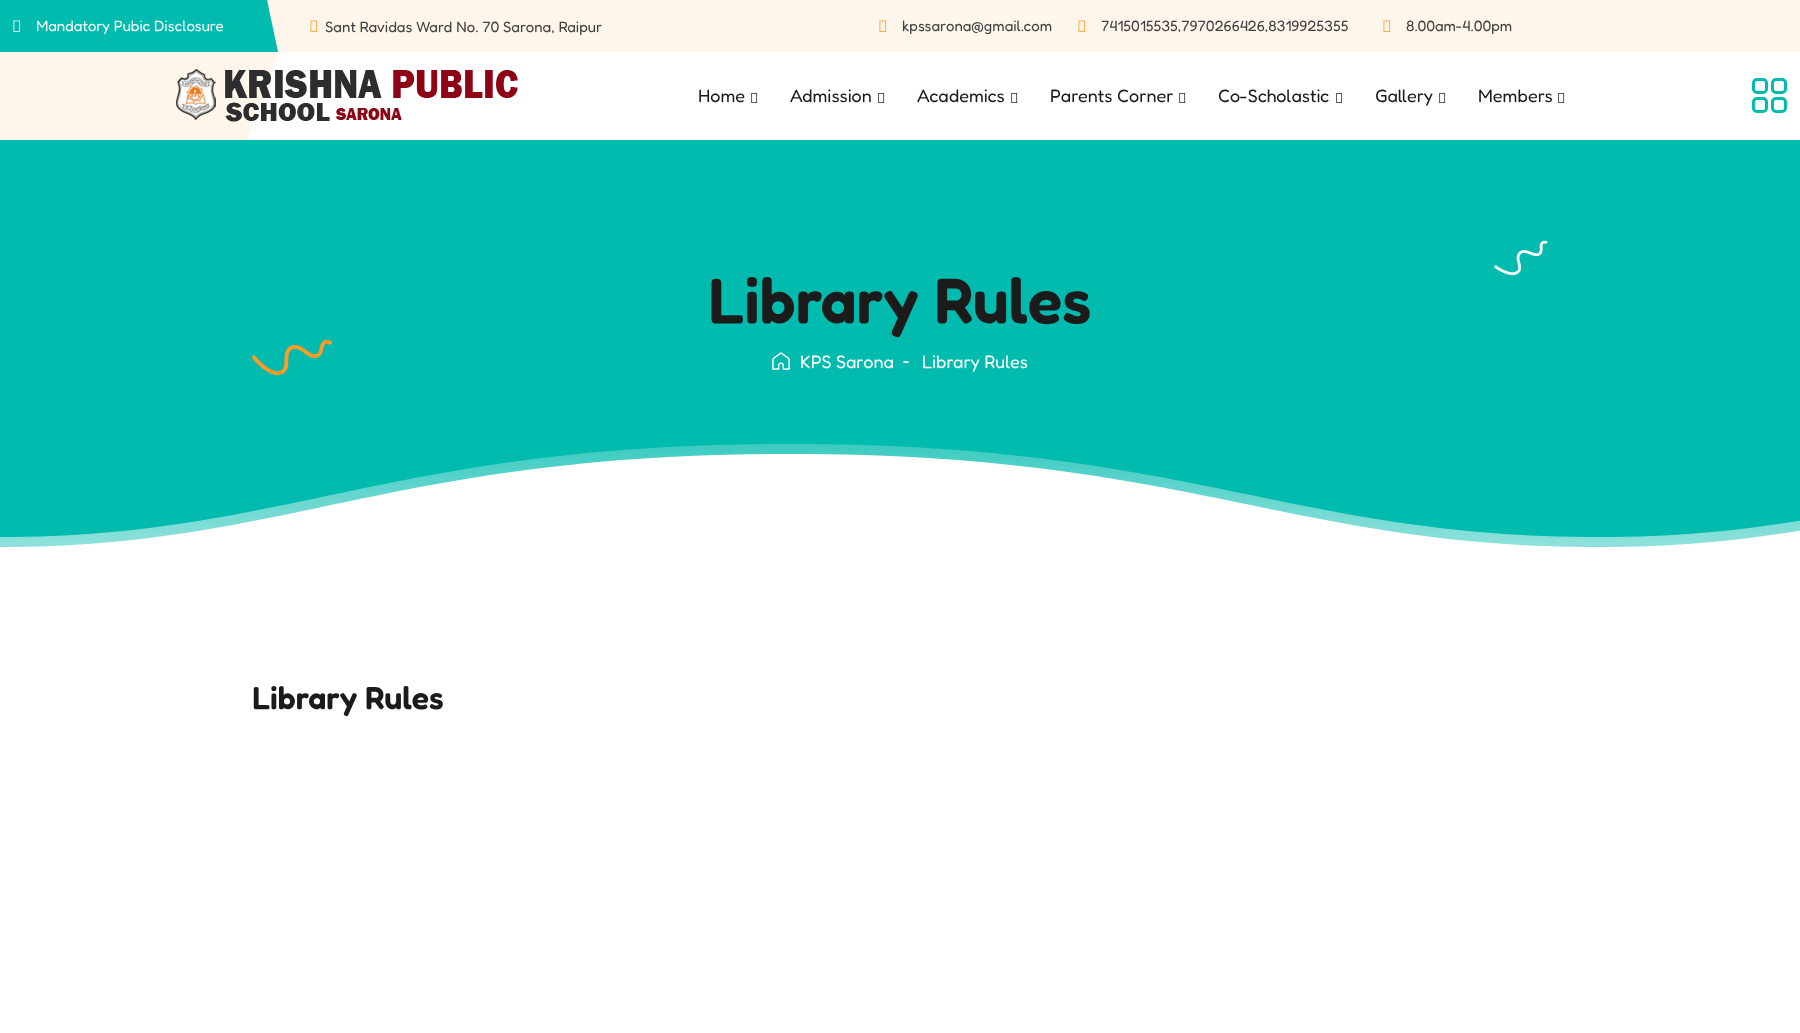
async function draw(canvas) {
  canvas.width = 1800
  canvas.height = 1033
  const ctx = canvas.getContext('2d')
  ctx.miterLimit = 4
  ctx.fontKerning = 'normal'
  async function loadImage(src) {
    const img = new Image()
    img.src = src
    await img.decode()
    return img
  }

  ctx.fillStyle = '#fff'
  ctx.fillRect(0, 0, 1800, 1033)
  ctx.fillStyle = '#fff6eb'
  ctx.fillRect(267, 0, 1533, 52)
  ctx.fillStyle = '#00bbae'
  ctx.beginPath()
  ctx.moveTo(0, 0)
  ctx.lineTo(0, 52)
  ctx.lineTo(278, 52)
  ctx.lineTo(267, 0)
  ctx.closePath()
  ctx.fill()
  ctx.drawImage(await loadImage('image0.png'), 13, 20, 8, 12)
  ctx.font = '15px Fredoka'
  ctx.fillStyle = '#fff'
  ctx.fillText('Mandatory Pubic Disclosure', 36, 31)
  ctx.drawImage(await loadImage('image1.png'), 310, 20, 8, 12)
  ctx.fillStyle = '#424242'
  ctx.fillText('Sant Ravidas Ward No. 70 Sarona, Raipur', 325, 32)
  ctx.drawImage(await loadImage('image1.png'), 879, 20, 8, 12)
  ctx.fillText('kpssarona@gmail.com', 902, 31)
  ctx.drawImage(await loadImage('image1.png'), 1078, 20, 8, 12)
  ctx.fillText('7415015535,7970266426,8319925355', 1101, 31)
  ctx.drawImage(await loadImage('image1.png'), 1383, 20, 8, 12)
  ctx.fillText('8.00am-4.00pm', 1406, 31)
  ctx.fillStyle = '#fff6eb'
  ctx.beginPath()
  ctx.moveTo(0, 52)
  ctx.lineTo(0, 140)
  ctx.lineTo(247, 140)
  ctx.lineTo(278, 52)
  ctx.closePath()
  ctx.fill()
  ctx.drawImage(await loadImage('image2.png'), 176, 69, 342, 53)
  ctx.font = '18px Fredoka'
  ctx.fillStyle = '#1b1b1b'
  ctx.fillText('Home', 698, 102)
  ctx.drawImage(await loadImage('image3.png'), 751, 93, 7, 10)
  ctx.fillText('Admission', 790, 102)
  ctx.drawImage(await loadImage('image3.png'), 878, 93, 7, 10)
  ctx.fillText('Academics', 917, 102)
  ctx.drawImage(await loadImage('image3.png'), 1011, 93, 7, 10)
  ctx.fillText('Parents Corner', 1050, 102)
  ctx.drawImage(await loadImage('image3.png'), 1179, 93, 7, 10)
  ctx.fillText('Co-Scholastic', 1218, 102)
  ctx.drawImage(await loadImage('image3.png'), 1336, 93, 7, 10)
  ctx.fillText('Gallery', 1375, 102)
  ctx.drawImage(await loadImage('image3.png'), 1439, 93, 7, 10)
  ctx.fillText('Members', 1478, 102)
  ctx.drawImage(await loadImage('image3.png'), 1558, 93, 7, 10)
  ctx.beginPath()
  ctx.roundRect(1753.5, 79.5, 13, 13, 3.5)
  ctx.strokeStyle = '#00bbae'
  ctx.lineWidth = 3
  ctx.stroke()
  ctx.beginPath()
  ctx.roundRect(1772.5, 79.5, 13, 13, 3.5)
  ctx.stroke()
  ctx.beginPath()
  ctx.roundRect(1753.5, 98.5, 13, 13, 3.5)
  ctx.stroke()
  ctx.beginPath()
  ctx.roundRect(1772.5, 98.5, 13, 13, 3.5)
  ctx.stroke()
  ctx.fillStyle = '#00bbae'
  ctx.fillRect(0, 140, 1800, 407)
  ctx.drawImage(await loadImage('image4.png'), 1494, 240, 54, 35)
  ctx.drawImage(await loadImage('image5.png'), 252, 340, 80, 35)
  ctx.font = '600 64px Fredoka'
  ctx.fillStyle = '#1b1b1b'
  ctx.fillText('Library Rules', 708, 323)
  ctx.drawImage(await loadImage('image6.png'), 772, 352, 18, 18)
  ctx.font = '18px Fredoka'
  ctx.fillStyle = '#fff'
  ctx.fillText('KPS Sarona', 800, 368)
  ctx.beginPath()
  ctx.moveTo(905.5, 361)
  ctx.lineTo(908.5, 361.5)
  ctx.bezierCurveTo(910.5, 362.5, 907, 363, 906.5, 363)
  ctx.lineTo(903.5, 362.5)
  ctx.bezierCurveTo(901.5, 361.5, 905, 361, 905.5, 361)
  ctx.closePath()
  ctx.fill()
  ctx.fillText('Library Rules', 922, 368)
  ctx.drawImage(await loadImage('image7.png'), 0, 444, 1800, 103)
  ctx.drawImage(await loadImage('image8.png'), 0, 454, 1800, 100)
  ctx.font = '600 32px Fredoka'
  ctx.fillStyle = '#1b1b1b'
  ctx.fillText('Library Rules', 252, 709)
}

draw(document.querySelector('canvas'))
